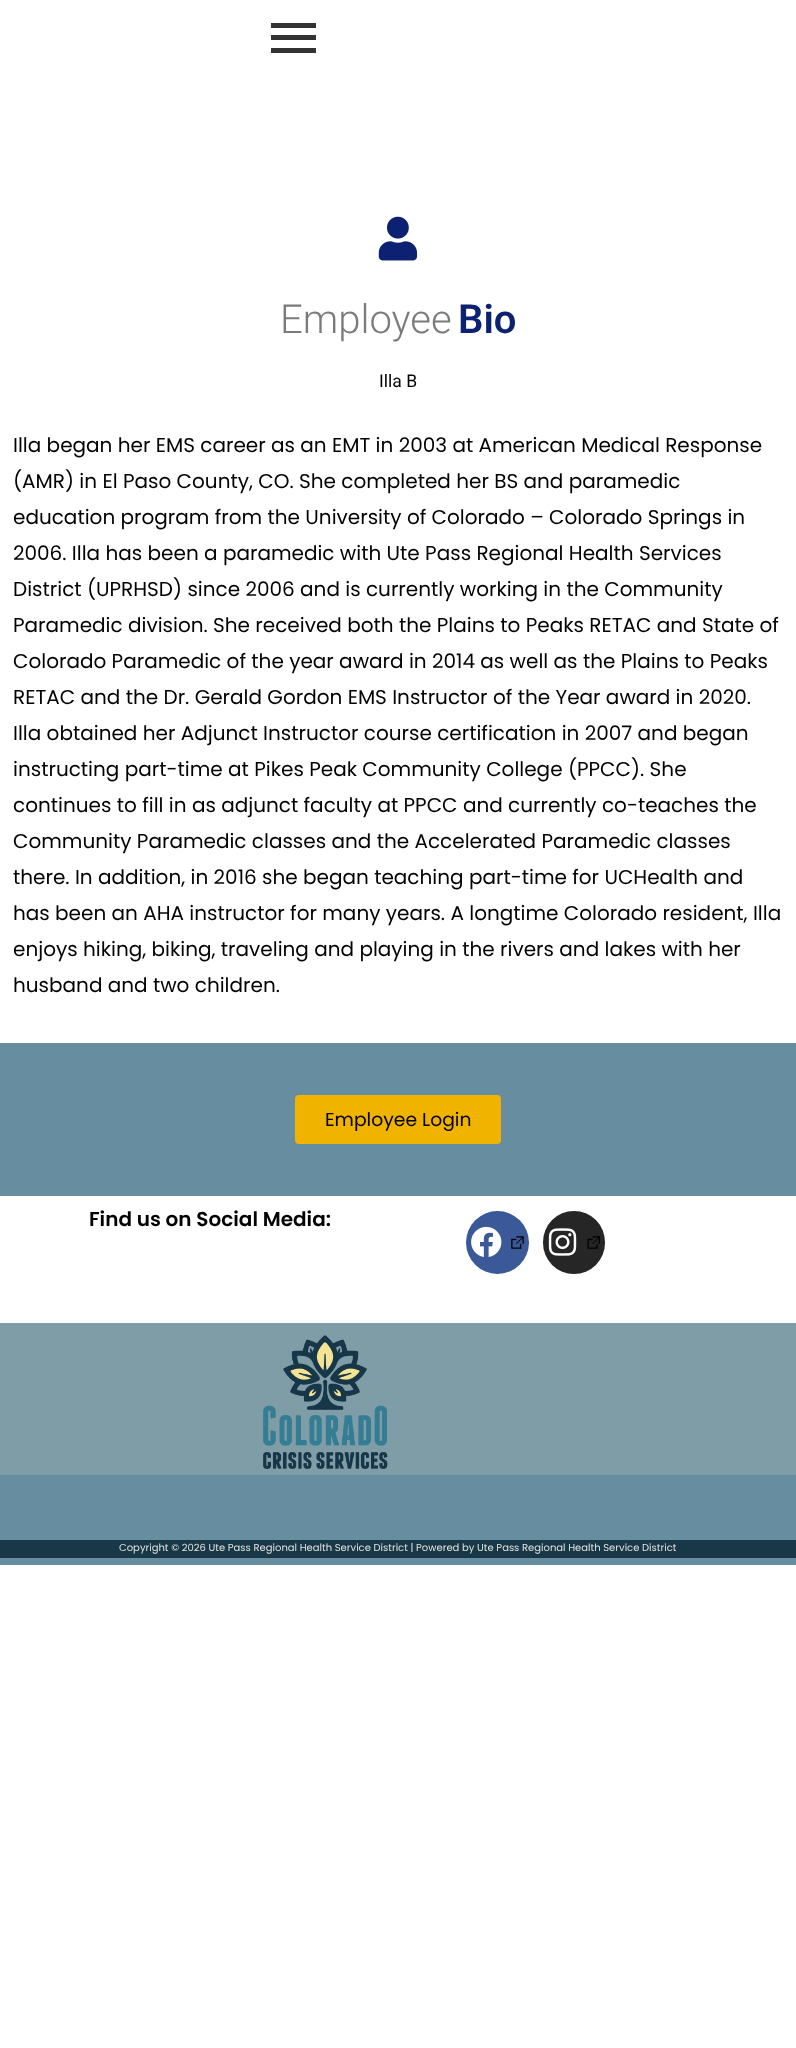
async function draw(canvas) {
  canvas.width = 796
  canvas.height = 2048
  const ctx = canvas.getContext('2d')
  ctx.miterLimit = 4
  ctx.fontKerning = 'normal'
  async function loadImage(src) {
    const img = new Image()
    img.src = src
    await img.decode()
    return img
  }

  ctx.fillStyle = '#fff'
  ctx.fillRect(0, 0, 796, 2048)
  ctx.fillStyle = '#333'
  ctx.fillRect(271, 23, 45, 5)
  ctx.fillRect(271, 35, 45, 5)
  ctx.fillRect(271, 48, 45, 5)
  ctx.drawImage(await loadImage('image0.png'), 378, 216, 40, 45)
  ctx.font = '300 40px Roboto'
  ctx.fillStyle = '#7b7b7b'
  ctx.fillText('Employee', 280, 333)
  ctx.font = '600 40px Roboto'
  ctx.fillStyle = '#0d2172'
  ctx.fillText('Bio', 458, 333)
  ctx.font = '17.5px Roboto'
  ctx.fillStyle = '#020202'
  ctx.fillText('Illa B', 379, 387)
  ctx.font = '20px Poppins'
  ctx.fillText('Illa began her EMS career as an EMT in 2003 at American Medical Response', 13, 452)
  ctx.fillText('(AMR) in El Paso County, CO. She completed her BS and paramedic', 13, 488)
  ctx.fillText('education program from the University of Colorado – Colorado Springs in', 13, 524)
  ctx.fillText('2006. Illa has been a paramedic with Ute Pass Regional Health Services', 13, 560)
  ctx.fillText('District (UPRHSD) since 2006 and is currently working in the Community', 13, 596)
  ctx.fillText('Paramedic division. She received both the Plains to Peaks RETAC and State of', 13, 632)
  ctx.fillText('Colorado Paramedic of the year award in 2014 as well as the Plains to Peaks', 13, 668)
  ctx.fillText('RETAC and the Dr. Gerald Gordon EMS Instructor of the Year award in 2020.', 13, 704)
  ctx.fillText('Illa obtained her Adjunct Instructor course certification in 2007 and began', 13, 740)
  ctx.fillText('instructing part-time at Pikes Peak Community College (PPCC). She', 13, 776)
  ctx.fillText('continues to fill in as adjunct faculty at PPCC and currently co-teaches the', 13, 812)
  ctx.fillText('Community Paramedic classes and the Accelerated Paramedic classes', 13, 848)
  ctx.fillText('there. In addition, in 2016 she began teaching part-time for UCHealth and', 13, 884)
  ctx.fillText('has been an AHA instructor for many years. A longtime Colorado resident, Illa', 13, 920)
  ctx.fillText('enjoys hiking, biking, traveling and playing in the rivers and lakes with her', 13, 956)
  ctx.fillText('husband and two children.', 13, 992)
  ctx.fillStyle = '#668da0'
  ctx.fillRect(0, 1043, 796, 153)
  ctx.fillStyle = '#f0b300'
  ctx.beginPath()
  ctx.roundRect(295, 1095, 206, 49, 4)
  ctx.fill()
  ctx.font = '18.75px Poppins'
  ctx.fillStyle = '#020202'
  ctx.fillText('Employee Login', 325, 1126)
  ctx.font = '600 20px Poppins'
  ctx.fillText('Find us on Social Media:', 89, 1226)
  ctx.fillStyle = '#3b5998'
  ctx.beginPath()
  ctx.arc(497.5, 1242.5, 31.5, 0, 2 * Math.PI)
  ctx.fill()
  ctx.drawImage(await loadImage('image1.png'), 471, 1226, 31, 31)
  ctx.drawImage(await loadImage('image2.png'), 511, 1236, 13, 13)
  ctx.fillStyle = '#262626'
  ctx.beginPath()
  ctx.roundRect(543, 1211, 62, 63, 31)
  ctx.fill()
  ctx.drawImage(await loadImage('image3.png'), 548, 1228, 29, 28)
  ctx.drawImage(await loadImage('image4.png'), 587, 1236, 13, 13)
  ctx.fillStyle = '#7f9da7'
  ctx.fillRect(0, 1323, 796, 152)
  ctx.drawImage(await loadImage('image5.png'), 263, 1335, 125, 134)
  ctx.fillStyle = '#668da0'
  ctx.fillRect(0, 1475, 796, 90)
  ctx.fillStyle = '#183747'
  ctx.fillRect(0, 1540, 796, 18)
  ctx.font = '10px Poppins'
  ctx.fillStyle = '#e1e1e1'
  ctx.fillText('Copyright © 2026 Ute Pass Regional Health Service District | Powered by Ute Pass Regional Health Service District', 119, 1551)
}

draw(document.querySelector('canvas'))
